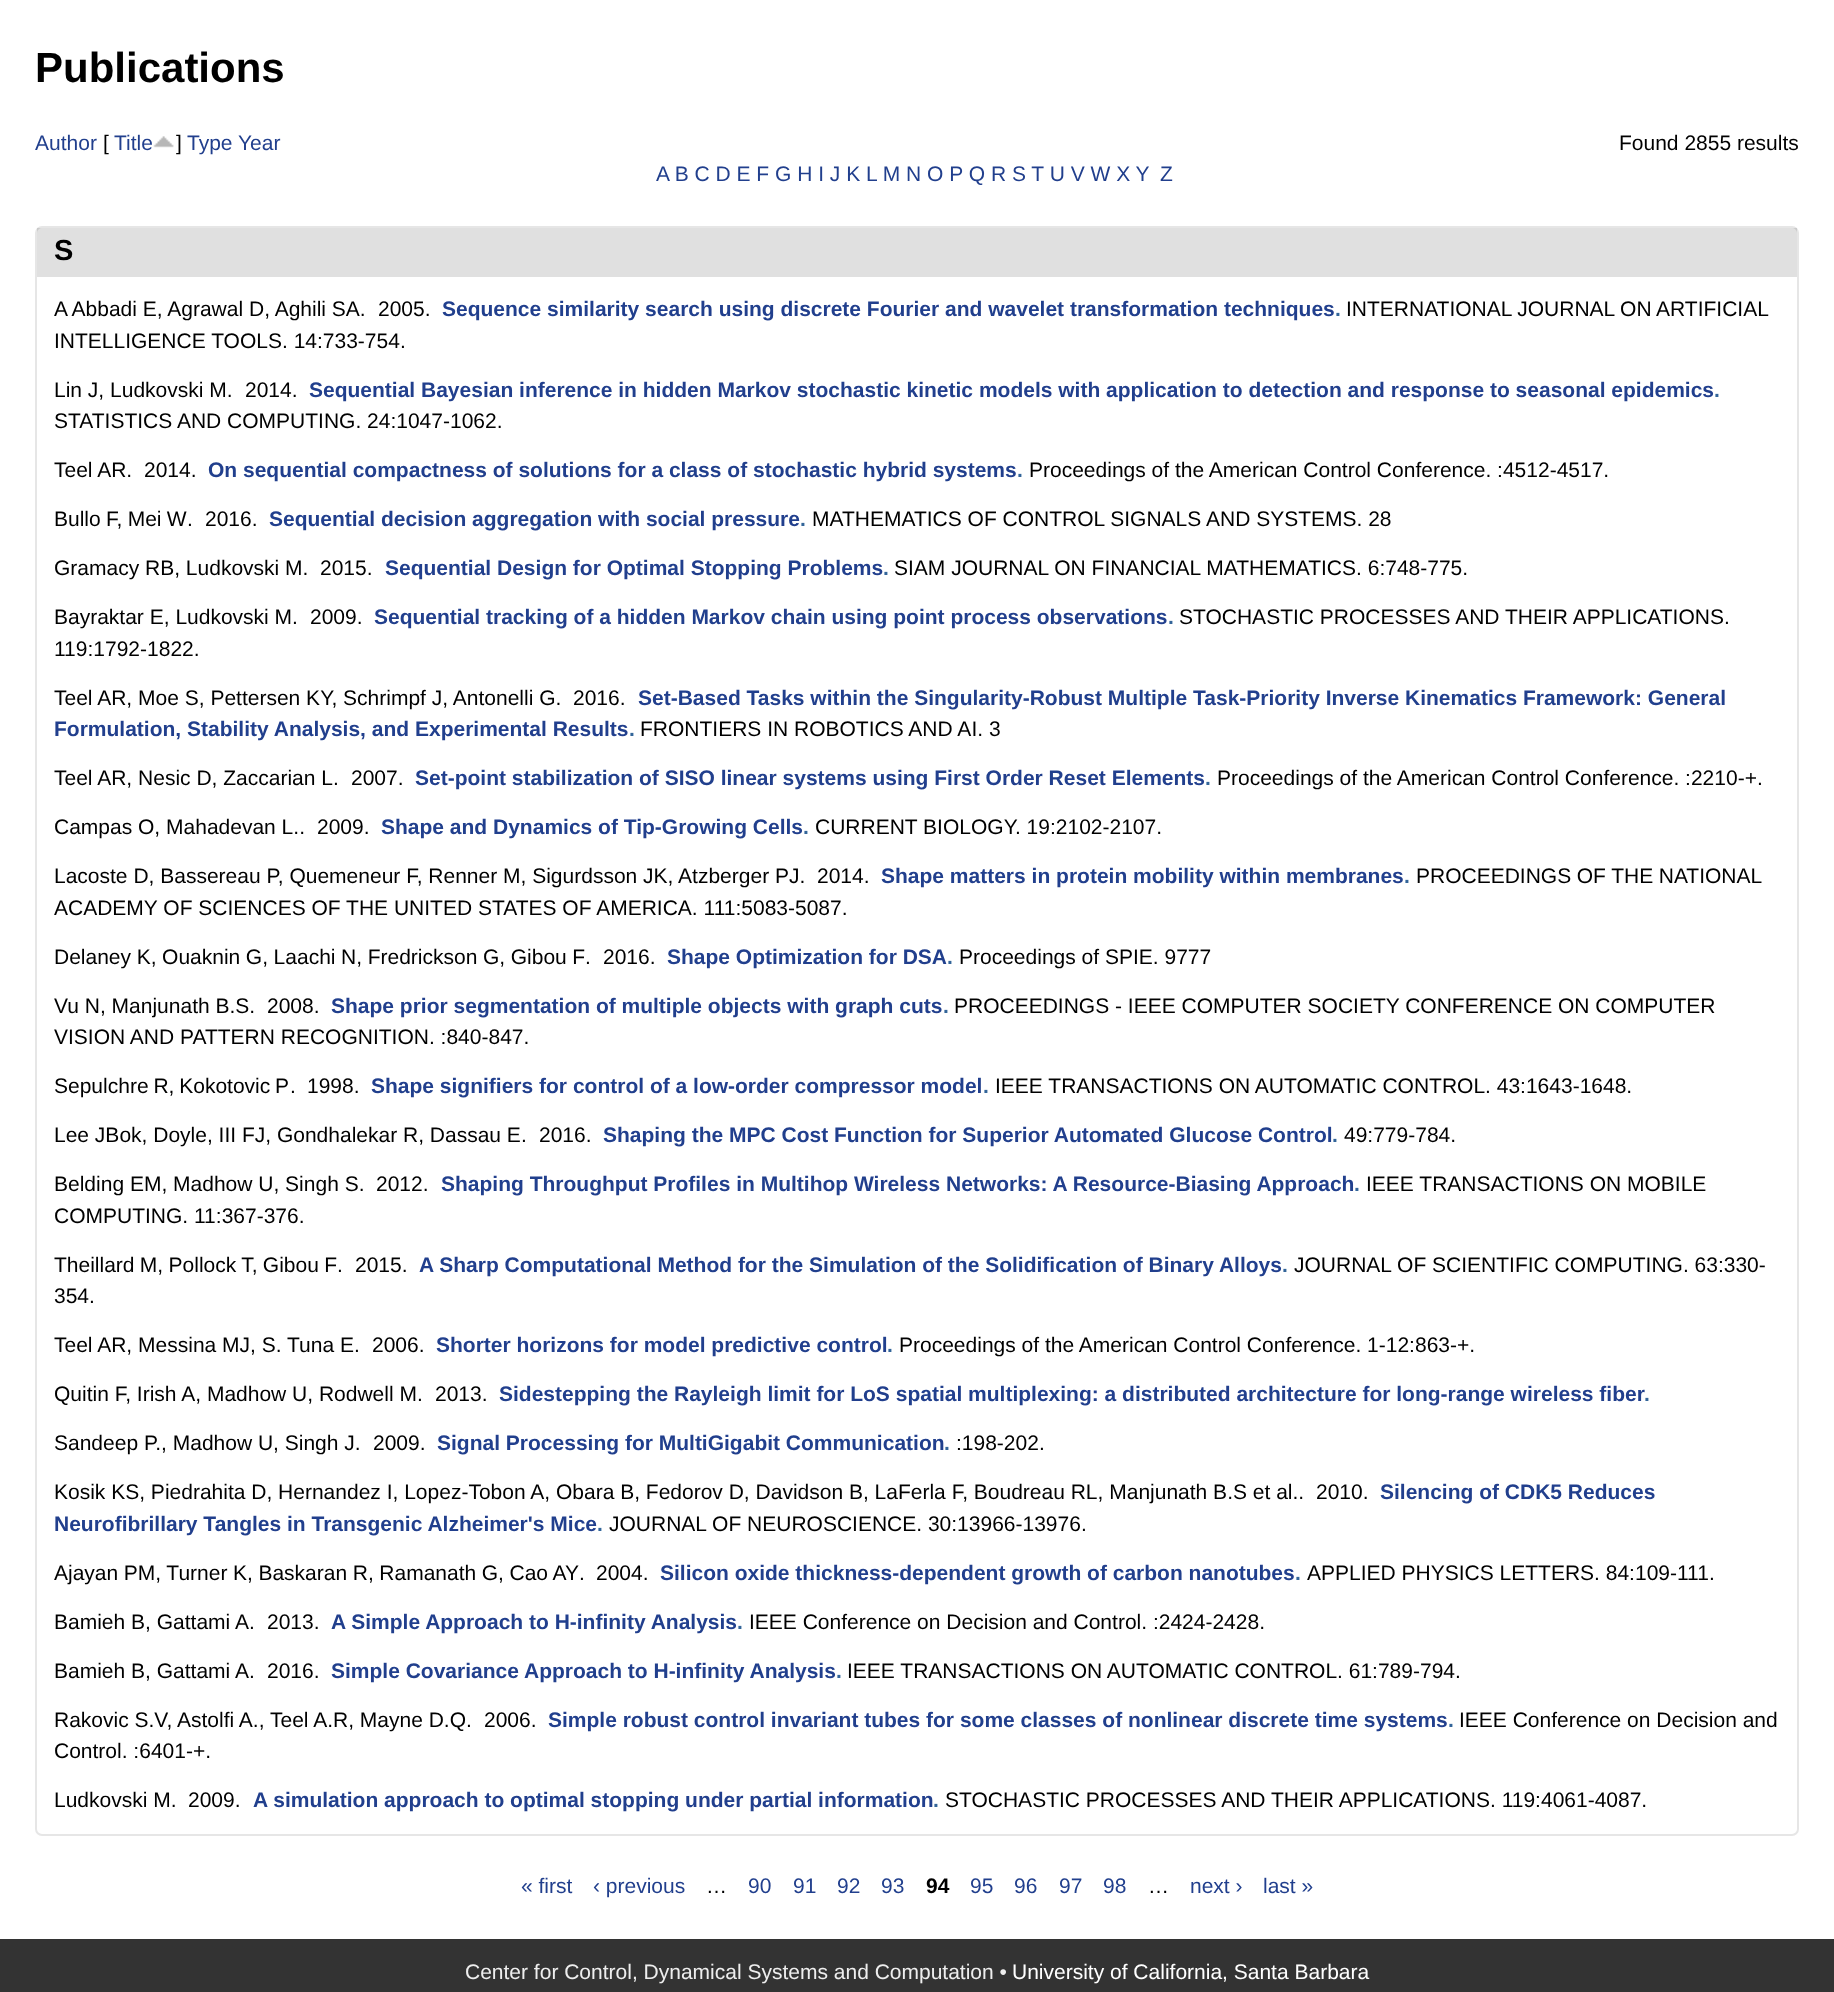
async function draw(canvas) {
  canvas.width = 1834
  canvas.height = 1992
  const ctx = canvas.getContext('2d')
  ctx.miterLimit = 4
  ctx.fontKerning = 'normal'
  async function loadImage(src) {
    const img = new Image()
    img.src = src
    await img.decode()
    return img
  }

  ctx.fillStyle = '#333'
  ctx.fillRect(0, 0, 1834, 1992)
  ctx.fillStyle = '#fff'
  ctx.fillRect(0, 0, 1834, 1939)
  ctx.font = 'bold 42px Liberation Sans'
  ctx.fillStyle = '#000'
  ctx.fillText('Publications', 35, 82)
  ctx.font = '21px Liberation Sans'
  ctx.fillStyle = '#213f8d'
  ctx.fillText('Author', 35, 150)
  ctx.fillStyle = '#000'
  ctx.fillText('[', 103, 150)
  ctx.fillStyle = '#213f8d'
  ctx.fillText('Title', 114, 150)
  ctx.drawImage(await loadImage('image0.png'), 153, 136, 21, 12)
  ctx.fillStyle = '#000'
  ctx.fillText(']', 176, 150)
  ctx.fillStyle = '#213f8d'
  ctx.fillText('Type', 187, 150)
  ctx.fillText('Year', 238, 150)
  ctx.fillStyle = '#000'
  ctx.fillText('Found 2855 results', 1619, 150)
  ctx.fillStyle = '#213f8d'
  ctx.fillText('A B C D E F G H I J K L M N O P Q R S T U V W X Y', 656, 181)
  ctx.fillText('Z', 1160, 181)
  ctx.beginPath()
  ctx.roundRect(36, 227, 1762, 1608, 6)
  ctx.strokeStyle = '#e6e6e6'
  ctx.lineWidth = 2
  ctx.stroke()
  ctx.fillStyle = '#0000001f'
  ctx.fillRect(37, 228, 1760, 49)
  ctx.font = 'bold 29px Liberation Sans'
  ctx.fillStyle = '#000'
  ctx.fillText('S', 54, 260)
  ctx.font = '21px Liberation Sans'
  ctx.fillText('A Abbadi E, Agrawal D, Aghili SA.', 54, 316)
  ctx.fillText('2005.', 378, 316)
  ctx.font = 'bold 21px Liberation Sans'
  ctx.fillStyle = '#213f8d'
  ctx.fillText('Sequence similarity search using discrete Fourier and wavelet transformation techniques', 442, 316)
  ctx.fillStyle = '#336599'
  ctx.fillText('.', 1335, 316)
  ctx.wordSpacing = '-0.25px'
  ctx.font = '21px Liberation Sans'
  ctx.fillStyle = '#000'
  ctx.fillText('INTERNATIONAL JOURNAL ON ARTIFICIAL', 1346, 316)
  ctx.wordSpacing = '0px'
  ctx.fillText('INTELLIGENCE TOOLS. 14:733-754.', 54, 348)
  ctx.fillText('Lin J, Ludkovski M.', 54, 397)
  ctx.fillText('2014.', 245, 397)
  ctx.font = 'bold 21px Liberation Sans'
  ctx.fillStyle = '#213f8d'
  ctx.fillText('Sequential Bayesian inference in hidden Markov stochastic kinetic models with application to detection and response to seasonal epidemics', 309, 397)
  ctx.fillStyle = '#336599'
  ctx.fillText('.', 1714, 397)
  ctx.font = '21px Liberation Sans'
  ctx.fillStyle = '#000'
  ctx.fillText('STATISTICS AND COMPUTING. 24:1047-1062.', 54, 428)
  ctx.fillText('Teel AR.', 54, 477)
  ctx.fillText('2014.', 144, 477)
  ctx.font = 'bold 21px Liberation Sans'
  ctx.fillStyle = '#213f8d'
  ctx.fillText('On sequential compactness of solutions for a class of stochastic hybrid systems', 208, 477)
  ctx.fillStyle = '#336599'
  ctx.fillText('.', 1017, 477)
  ctx.font = '21px Liberation Sans'
  ctx.fillStyle = '#000'
  ctx.fillText('Proceedings of the American Control Conference. :4512-4517.', 1029, 477)
  ctx.wordSpacing = '-0.5px'
  ctx.fillText('Bullo F, Mei W', 54, 526)
  ctx.wordSpacing = '0px'
  ctx.fillText('.', 187, 526)
  ctx.fillText('2016.', 205, 526)
  ctx.font = 'bold 21px Liberation Sans'
  ctx.fillStyle = '#213f8d'
  ctx.fillText('Sequential decision aggregation with social pressure', 269, 526)
  ctx.fillStyle = '#336599'
  ctx.fillText('.', 800, 526)
  ctx.font = '21px Liberation Sans'
  ctx.fillStyle = '#000'
  ctx.fillText('MATHEMATICS OF CONTROL SIGNALS AND SYSTEMS. 28', 812, 526)
  ctx.fillText('Gramacy RB, Ludkovski M.', 54, 575)
  ctx.fillText('2015.', 320, 575)
  ctx.font = 'bold 21px Liberation Sans'
  ctx.fillStyle = '#213f8d'
  ctx.fillText('Sequential Design for Optimal Stopping Problems', 385, 575)
  ctx.fillStyle = '#336599'
  ctx.fillText('.', 883, 575)
  ctx.font = '21px Liberation Sans'
  ctx.fillStyle = '#000'
  ctx.fillText('SIAM JOURNAL ON FINANCIAL MATHEMATICS. 6:748-775.', 894, 575)
  ctx.fillText('Bayraktar E, Ludkovski M.', 54, 624)
  ctx.fillText('2009.', 310, 624)
  ctx.font = 'bold 21px Liberation Sans'
  ctx.fillStyle = '#213f8d'
  ctx.fillText('Sequential tracking of a hidden Markov chain using point process observations', 374, 624)
  ctx.fillStyle = '#336599'
  ctx.fillText('.', 1168, 624)
  ctx.font = '21px Liberation Sans'
  ctx.fillStyle = '#000'
  ctx.fillText('STOCHASTIC PROCESSES AND THEIR APPLICATIONS.', 1179, 624)
  ctx.fillText('119:1792-1822.', 54, 656)
  ctx.fillText('Teel AR, Moe S, Pettersen KY, Schrimpf J, Antonelli G.', 54, 705)
  ctx.fillText('2016.', 573, 705)
  ctx.font = 'bold 21px Liberation Sans'
  ctx.fillStyle = '#213f8d'
  ctx.fillText('Set-Based Tasks within the Singularity-Robust Multiple Task-Priority Inverse Kinematics Framework: General', 638, 705)
  ctx.fillText('Formulation, Stability Analysis, and Experimental Results', 54, 736)
  ctx.fillStyle = '#336599'
  ctx.fillText('.', 629, 736)
  ctx.font = '21px Liberation Sans'
  ctx.fillStyle = '#000'
  ctx.fillText('FRONTIERS IN ROBOTICS AND AI. 3', 640, 736)
  ctx.fillText('Teel AR, Nesic D, Zaccarian L.', 54, 785)
  ctx.fillText('2007.', 351, 785)
  ctx.font = 'bold 21px Liberation Sans'
  ctx.fillStyle = '#213f8d'
  ctx.fillText('Set-point stabilization of SISO linear systems using First Order Reset Elements', 415, 785)
  ctx.fillStyle = '#336599'
  ctx.fillText('.', 1205, 785)
  ctx.font = '21px Liberation Sans'
  ctx.fillStyle = '#000'
  ctx.fillText('Proceedings of the American Control Conference. :2210-+.', 1217, 785)
  ctx.fillText('Campas O, Mahadevan L..', 54, 834)
  ctx.fillText('2009.', 317, 834)
  ctx.font = 'bold 21px Liberation Sans'
  ctx.fillStyle = '#213f8d'
  ctx.fillText('Shape and Dynamics of Tip-Growing Cells', 381, 834)
  ctx.fillStyle = '#336599'
  ctx.fillText('.', 803, 834)
  ctx.font = '21px Liberation Sans'
  ctx.fillStyle = '#000'
  ctx.fillText('CURRENT BIOLOGY. 19:2102-2107.', 815, 834)
  ctx.fillText('Lacoste D, Bassereau P, Quemeneur F, Renner M, Sigurdsson JK, Atzberger PJ.', 54, 883)
  ctx.fillText('2014.', 817, 883)
  ctx.font = 'bold 21px Liberation Sans'
  ctx.fillStyle = '#213f8d'
  ctx.fillText('Shape matters in protein mobility within membranes', 881, 883)
  ctx.fillStyle = '#336599'
  ctx.fillText('.', 1404, 883)
  ctx.wordSpacing = '-0.25px'
  ctx.font = '21px Liberation Sans'
  ctx.fillStyle = '#000'
  ctx.fillText('PROCEEDINGS OF THE NATIONAL', 1416, 883)
  ctx.wordSpacing = '0px'
  ctx.fillText('ACADEMY OF SCIENCES OF THE UNITED STATES OF AMERICA. 111:5083-5087.', 54, 915)
  ctx.wordSpacing = '-0.25px'
  ctx.fillText('Delaney K, Ouaknin G, Laachi N, Fredrickson G, Gibou F', 54, 964)
  ctx.wordSpacing = '0px'
  ctx.fillText('.', 585, 964)
  ctx.fillText('2016.', 603, 964)
  ctx.font = 'bold 21px Liberation Sans'
  ctx.fillStyle = '#213f8d'
  ctx.fillText('Shape Optimization for DSA', 667, 964)
  ctx.fillStyle = '#336599'
  ctx.fillText('.', 947, 964)
  ctx.font = '21px Liberation Sans'
  ctx.fillStyle = '#000'
  ctx.fillText('Proceedings of SPIE. 9777', 959, 964)
  ctx.fillText('Vu N, Manjunath B.S.', 54, 1013)
  ctx.fillText('2008.', 267, 1013)
  ctx.font = 'bold 21px Liberation Sans'
  ctx.fillStyle = '#213f8d'
  ctx.fillText('Shape prior segmentation of multiple objects with graph cuts', 331, 1013)
  ctx.fillStyle = '#336599'
  ctx.fillText('.', 943, 1013)
  ctx.font = '21px Liberation Sans'
  ctx.fillStyle = '#000'
  ctx.fillText('PROCEEDINGS - IEEE COMPUTER SOCIETY CONFERENCE ON COMPUTER', 954, 1013)
  ctx.fillText('VISION AND PATTERN RECOGNITION. :840-847.', 54, 1044)
  ctx.wordSpacing = '-1px'
  ctx.fillText('Sepulchre R, Kokotovic P', 54, 1093)
  ctx.wordSpacing = '0px'
  ctx.fillText('.', 290, 1093)
  ctx.fillText('1998.', 307, 1093)
  ctx.font = 'bold 21px Liberation Sans'
  ctx.fillStyle = '#213f8d'
  ctx.fillText('Shape signifiers for control of a low-order compressor model', 371, 1093)
  ctx.fillStyle = '#336599'
  ctx.fillText('.', 983, 1093)
  ctx.font = '21px Liberation Sans'
  ctx.fillStyle = '#000'
  ctx.fillText('IEEE TRANSACTIONS ON AUTOMATIC CONTROL. 43:1643-1648.', 995, 1093)
  ctx.fillText('Lee JBok, Doyle, III FJ, Gondhalekar R, Dassau E.', 54, 1142)
  ctx.fillText('2016.', 539, 1142)
  ctx.font = 'bold 21px Liberation Sans'
  ctx.fillStyle = '#213f8d'
  ctx.fillText('Shaping the MPC Cost Function for Superior Automated Glucose Control', 603, 1142)
  ctx.fillStyle = '#336599'
  ctx.fillText('.', 1332, 1142)
  ctx.font = '21px Liberation Sans'
  ctx.fillStyle = '#000'
  ctx.fillText('49:779-784.', 1344, 1142)
  ctx.fillText('Belding EM, Madhow U, Singh S.', 54, 1191)
  ctx.fillText('2012.', 376, 1191)
  ctx.font = 'bold 21px Liberation Sans'
  ctx.fillStyle = '#213f8d'
  ctx.fillText('Shaping Throughput Profiles in Multihop Wireless Networks: A Resource-Biasing Approach', 441, 1191)
  ctx.fillStyle = '#336599'
  ctx.fillText('.', 1354, 1191)
  ctx.font = '21px Liberation Sans'
  ctx.fillStyle = '#000'
  ctx.fillText('IEEE TRANSACTIONS ON MOBILE', 1366, 1191)
  ctx.fillText('COMPUTING. 11:367-376.', 54, 1223)
  ctx.wordSpacing = '-0.5px'
  ctx.fillText('Theillard M, Pollock T, Gibou F', 54, 1272)
  ctx.wordSpacing = '0px'
  ctx.fillText('.', 337, 1272)
  ctx.fillText('2015.', 355, 1272)
  ctx.font = 'bold 21px Liberation Sans'
  ctx.fillStyle = '#213f8d'
  ctx.fillText('A Sharp Computational Method for the Simulation of the Solidification of Binary Alloys', 419, 1272)
  ctx.fillStyle = '#336599'
  ctx.fillText('.', 1282, 1272)
  ctx.font = '21px Liberation Sans'
  ctx.fillStyle = '#000'
  ctx.fillText('JOURNAL OF SCIENTIFIC COMPUTING. 63:330-', 1294, 1272)
  ctx.fillText('354.', 54, 1303)
  ctx.fillText('Teel AR, Messina MJ, S. Tuna E.', 54, 1352)
  ctx.fillText('2006.', 372, 1352)
  ctx.font = 'bold 21px Liberation Sans'
  ctx.fillStyle = '#213f8d'
  ctx.fillText('Shorter horizons for model predictive control', 436, 1352)
  ctx.fillStyle = '#336599'
  ctx.fillText('.', 887, 1352)
  ctx.font = '21px Liberation Sans'
  ctx.fillStyle = '#000'
  ctx.fillText('Proceedings of the American Control Conference. 1-12:863-+.', 899, 1352)
  ctx.fillText('Quitin F, Irish A, Madhow U, Rodwell M.', 54, 1401)
  ctx.fillText('2013.', 435, 1401)
  ctx.font = 'bold 21px Liberation Sans'
  ctx.fillStyle = '#213f8d'
  ctx.fillText('Sidestepping the Rayleigh limit for LoS spatial multiplexing: a distributed architecture for long-range wireless fiber', 499, 1401)
  ctx.fillStyle = '#336599'
  ctx.fillText('.', 1644, 1401)
  ctx.font = '21px Liberation Sans'
  ctx.fillStyle = '#000'
  ctx.fillText('Sandeep P., Madhow U, Singh J.', 54, 1450)
  ctx.fillText('2009.', 373, 1450)
  ctx.font = 'bold 21px Liberation Sans'
  ctx.fillStyle = '#213f8d'
  ctx.fillText('Signal Processing for MultiGigabit Communication', 437, 1450)
  ctx.fillStyle = '#336599'
  ctx.fillText('.', 944, 1450)
  ctx.font = '21px Liberation Sans'
  ctx.fillStyle = '#000'
  ctx.fillText(':198-202.', 956, 1450)
  ctx.fillText('Kosik KS, Piedrahita D, Hernandez I, Lopez-Tobon A, Obara B, Fedorov D, Davidson B, LaFerla F, Boudreau RL, Manjunath B.S et al..', 54, 1499)
  ctx.fillText('2010.', 1316, 1499)
  ctx.font = 'bold 21px Liberation Sans'
  ctx.fillStyle = '#213f8d'
  ctx.fillText('Silencing of CDK5 Reduces', 1380, 1499)
  ctx.fillText('Neurofibrillary Tangles in Transgenic Alzheimer\'s Mice', 54, 1531)
  ctx.fillStyle = '#336599'
  ctx.fillText('.', 597, 1531)
  ctx.font = '21px Liberation Sans'
  ctx.fillStyle = '#000'
  ctx.fillText('JOURNAL OF NEUROSCIENCE. 30:13966-13976.', 609, 1531)
  ctx.wordSpacing = '-0.25px'
  ctx.fillText('Ajayan PM, Turner K, Baskaran R, Ramanath G, Cao AY', 54, 1580)
  ctx.wordSpacing = '0px'
  ctx.fillText('.', 579, 1580)
  ctx.fillText('2004.', 596, 1580)
  ctx.font = 'bold 21px Liberation Sans'
  ctx.fillStyle = '#213f8d'
  ctx.fillText('Silicon oxide thickness-dependent growth of carbon nanotubes', 660, 1580)
  ctx.fillStyle = '#336599'
  ctx.fillText('.', 1295, 1580)
  ctx.font = '21px Liberation Sans'
  ctx.fillStyle = '#000'
  ctx.fillText('APPLIED PHYSICS LETTERS. 84:109-111.', 1307, 1580)
  ctx.fillText('Bamieh B, Gattami A.', 54, 1629)
  ctx.fillText('2013.', 267, 1629)
  ctx.font = 'bold 21px Liberation Sans'
  ctx.fillStyle = '#213f8d'
  ctx.fillText('A Simple Approach to H-infinity Analysis', 331, 1629)
  ctx.fillStyle = '#336599'
  ctx.fillText('.', 737, 1629)
  ctx.font = '21px Liberation Sans'
  ctx.fillStyle = '#000'
  ctx.fillText('IEEE Conference on Decision and Control. :2424-2428.', 749, 1629)
  ctx.fillText('Bamieh B, Gattami A.', 54, 1678)
  ctx.fillText('2016.', 267, 1678)
  ctx.font = 'bold 21px Liberation Sans'
  ctx.fillStyle = '#213f8d'
  ctx.fillText('Simple Covariance Approach to H-infinity Analysis', 331, 1678)
  ctx.fillStyle = '#336599'
  ctx.fillText('.', 836, 1678)
  ctx.font = '21px Liberation Sans'
  ctx.fillStyle = '#000'
  ctx.fillText('IEEE TRANSACTIONS ON AUTOMATIC CONTROL. 61:789-794.', 847, 1678)
  ctx.fillText('Rakovic S.V, Astolfi A., Teel A.R, Mayne D.Q.', 54, 1727)
  ctx.fillText('2006.', 484, 1727)
  ctx.font = 'bold 21px Liberation Sans'
  ctx.fillStyle = '#213f8d'
  ctx.fillText('Simple robust control invariant tubes for some classes of nonlinear discrete time systems', 548, 1727)
  ctx.fillStyle = '#336599'
  ctx.fillText('.', 1448, 1727)
  ctx.font = '21px Liberation Sans'
  ctx.fillStyle = '#000'
  ctx.fillText('IEEE Conference on Decision and', 1459, 1727)
  ctx.fillText('Control. :6401-+.', 54, 1758)
  ctx.fillText('Ludkovski M.', 54, 1807)
  ctx.fillText('2009.', 188, 1807)
  ctx.font = 'bold 21px Liberation Sans'
  ctx.fillStyle = '#213f8d'
  ctx.fillText('A simulation approach to optimal stopping under partial information', 253, 1807)
  ctx.fillStyle = '#336599'
  ctx.fillText('.', 933, 1807)
  ctx.font = '21px Liberation Sans'
  ctx.fillStyle = '#000'
  ctx.fillText('STOCHASTIC PROCESSES AND THEIR APPLICATIONS. 119:4061-4087.', 945, 1807)
  ctx.fillStyle = '#213f8d'
  ctx.fillText('« first', 521, 1893)
  ctx.fillText('‹ previous', 593, 1893)
  ctx.fillStyle = '#000'
  ctx.fillText('…', 706, 1893)
  ctx.fillStyle = '#213f8d'
  ctx.fillText('90', 748, 1893)
  ctx.fillText('91', 793, 1893)
  ctx.fillText('92', 837, 1893)
  ctx.fillText('93', 881, 1893)
  ctx.font = 'bold 21px Liberation Sans'
  ctx.fillStyle = '#000'
  ctx.fillText('94', 926, 1893)
  ctx.font = '21px Liberation Sans'
  ctx.fillStyle = '#213f8d'
  ctx.fillText('95', 970, 1893)
  ctx.fillText('96', 1014, 1893)
  ctx.fillText('97', 1059, 1893)
  ctx.fillText('98', 1103, 1893)
  ctx.fillStyle = '#000'
  ctx.fillText('…', 1148, 1893)
  ctx.fillStyle = '#213f8d'
  ctx.fillText('next ›', 1190, 1893)
  ctx.fillText('last »', 1263, 1893)
  ctx.fillStyle = '#eee'
  ctx.fillText('Center for Control, Dynamical Systems and Computation •', 465, 1979)
  ctx.fillStyle = '#fff'
  ctx.fillText('University of California, Santa Barbara', 1012, 1979)
}

draw(document.querySelector('canvas'))
